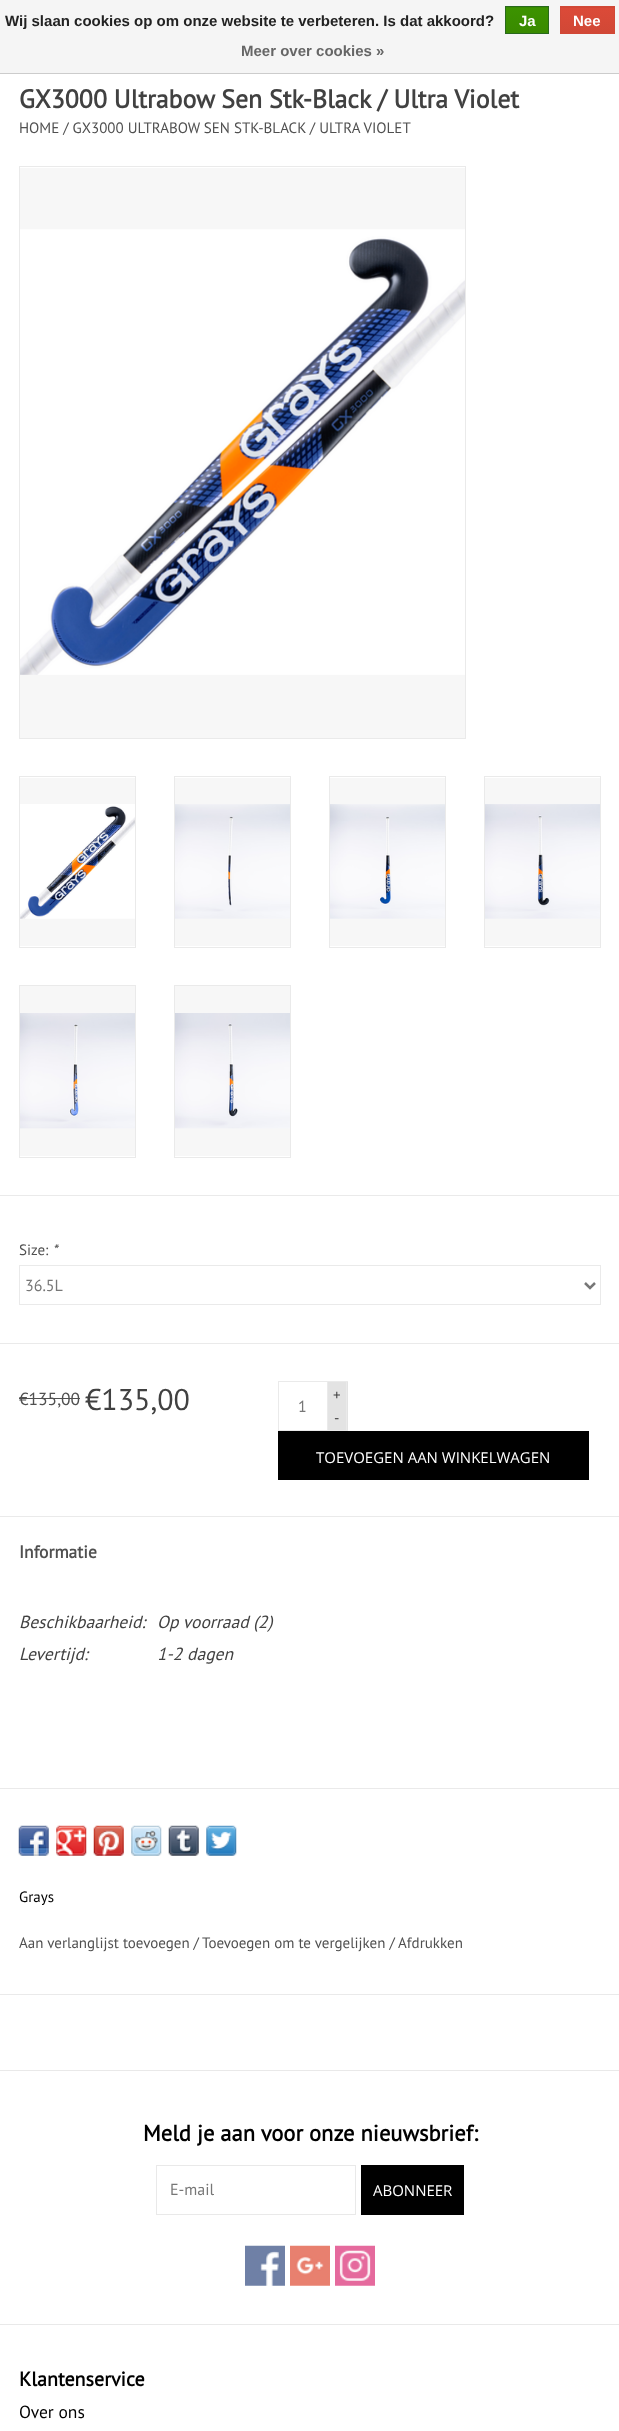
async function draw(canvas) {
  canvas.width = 619
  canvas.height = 2431
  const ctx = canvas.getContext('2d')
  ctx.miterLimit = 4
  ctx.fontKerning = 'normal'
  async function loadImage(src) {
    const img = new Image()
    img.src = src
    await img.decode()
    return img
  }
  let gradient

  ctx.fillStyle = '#fff'
  ctx.fillRect(0, 0, 619, 2431)
  ctx.fillStyle = '#f5f5f5'
  ctx.fillRect(0, 0, 619, 73)
  ctx.fillStyle = '#ccc'
  ctx.fillRect(0, 73, 619, 1)
  ctx.font = 'bold 15px Liberation Sans'
  ctx.fillStyle = '#222'
  ctx.fillText('Wij slaan cookies op om onze website te verbeteren. Is dat akkoord?', 5, 26)
  gradient = ctx.createLinearGradient(527, -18, 527, 7.5)
  gradient.addColorStop(0, '#3c9300')
  gradient.addColorStop(1, '#398a00')
  ctx.fillStyle = gradient
  ctx.fillRect(505, 7, 44, 1)
  gradient = ctx.createLinearGradient(527, 7.5, 527, 33)
  gradient.addColorStop(0, '#3c9300')
  gradient.addColorStop(1, '#398a00')
  ctx.fillStyle = gradient
  ctx.fillRect(506, 8, 42, 25)
  ctx.strokeStyle = '#29691d'
  ctx.strokeRect(505.5, 6.5, 43, 27)
  ctx.fillStyle = '#fff'
  ctx.fillText('Ja', 519, 26)
  gradient = ctx.createLinearGradient(588, -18, 588, 7.5)
  gradient.addColorStop(0, '#dc4a38')
  gradient.addColorStop(1, '#d14836')
  ctx.fillStyle = gradient
  ctx.fillRect(560, 7, 55, 1)
  gradient = ctx.createLinearGradient(588, 7.5, 588, 33)
  gradient.addColorStop(0, '#dc4a38')
  gradient.addColorStop(1, '#d14836')
  ctx.fillStyle = gradient
  ctx.fillRect(561, 8, 53, 25)
  ctx.strokeStyle = '#d14836'
  ctx.strokeRect(560.5, 6.5, 54, 27)
  ctx.fillStyle = '#fff'
  ctx.fillText('Nee', 573, 26)
  ctx.fillStyle = '#666'
  ctx.fillText('Meer over cookies »', 241, 56)
  ctx.font = 'bold 25.8px PT Sans'
  ctx.fillStyle = '#414141'
  ctx.fillText('GX3000 Ultrabow Sen Stk-Black / Ultra Violet', 19, 108)
  ctx.font = '15px PT Sans'
  ctx.fillStyle = '#505050'
  ctx.fillText('HOME / GX3000 ULTRABOW SEN STK-BLACK / ULTRA VIOLET', 19, 133)
  ctx.strokeStyle = '#eaeaea'
  ctx.strokeRect(19.5, 166.5, 446, 572)
  ctx.fillStyle = '#f7f7f7'
  ctx.fillRect(20, 168, 445, 570)
  ctx.drawImage(await loadImage('image0.png'), 20, 229, 445, 446)
  ctx.strokeRect(19.5, 776.5, 116, 171)
  ctx.fillRect(20, 778, 115, 168)
  ctx.drawImage(await loadImage('image1.png'), 20, 804, 115, 115)
  ctx.strokeRect(174.5, 776.5, 116, 171)
  ctx.fillRect(175, 778, 115, 168)
  ctx.drawImage(await loadImage('image2.png'), 175, 804, 115, 115)
  ctx.strokeRect(329.5, 776.5, 116, 171)
  ctx.fillRect(330, 778, 115, 168)
  ctx.drawImage(await loadImage('image3.png'), 330, 804, 115, 115)
  ctx.strokeRect(484.5, 776.5, 116, 171)
  ctx.fillRect(485, 778, 115, 168)
  ctx.drawImage(await loadImage('image4.png'), 485, 804, 115, 115)
  ctx.strokeRect(19.5, 985.5, 116, 172)
  ctx.fillRect(20, 986, 115, 170)
  ctx.drawImage(await loadImage('image5.png'), 20, 1013, 115, 116)
  ctx.strokeRect(174.5, 985.5, 116, 172)
  ctx.fillRect(175, 986, 115, 170)
  ctx.drawImage(await loadImage('image6.png'), 175, 1013, 115, 116)
  ctx.fillStyle = '#eaeaea'
  ctx.fillRect(0, 1195, 619, 1)
  ctx.fillStyle = '#505050'
  ctx.fillText('Size:', 19, 1255)
  ctx.font = 'italic 15px PT Sans'
  ctx.fillText('*', 52, 1255)
  ctx.strokeRect(19.5, 1265.5, 581, 39)
  ctx.beginPath()
  ctx.moveTo(585, 1283)
  ctx.lineTo(590, 1288)
  ctx.lineTo(595, 1283)
  ctx.strokeStyle = '#777'
  ctx.lineWidth = 2.5
  ctx.stroke()
  ctx.font = '16px PT Sans'
  ctx.fillStyle = '#777'
  ctx.fillText('36.5L', 25, 1291)
  ctx.fillStyle = '#eaeaea'
  ctx.fillRect(0, 1343, 619, 1)
  ctx.font = '17.5px PT Sans'
  ctx.fillStyle = '#505050'
  ctx.fillText('€135,00', 19, 1405)
  ctx.fillRect(19, 1398, 61, 1)
  ctx.font = '30px PT Sans'
  ctx.fillStyle = '#414141'
  ctx.fillText('€135,00', 85, 1410)
  ctx.strokeStyle = '#eaeaea'
  ctx.lineWidth = 1
  ctx.strokeRect(278.5, 1381.5, 49, 49)
  ctx.font = '16px PT Sans'
  ctx.fillStyle = '#777'
  ctx.fillText('1', 298, 1412)
  ctx.fillStyle = '#e3e3e3'
  ctx.fillRect(328, 1382, 20, 48)
  ctx.fillStyle = '#eaeaea'
  ctx.fillRect(328, 1381, 20, 1)
  ctx.fillRect(346, 1381, 1, 50)
  ctx.fillRect(328, 1430, 20, 1)
  ctx.font = '15px PT Sans'
  ctx.fillStyle = '#414141'
  ctx.fillText('+', 333, 1400)
  ctx.fillText('-', 334, 1423)
  ctx.fillStyle = '#000'
  ctx.fillRect(278, 1431, 311, 49)
  ctx.font = '15px Open Sans'
  ctx.fillStyle = '#fff'
  ctx.fillText('TOEVOEGEN AAN WINKELWAGEN', 316, 1463)
  ctx.fillStyle = '#eaeaea'
  ctx.fillRect(0, 1516, 619, 1)
  ctx.font = 'bold 17.5px PT Sans'
  ctx.fillStyle = '#505050'
  ctx.fillText('Informatie', 19, 1558)
  ctx.font = 'italic 17.5px PT Sans'
  ctx.fillStyle = '#414141'
  ctx.fillText('Beschikbaarheid:', 19, 1628)
  ctx.fillText('Op voorraad (2)', 157, 1628)
  ctx.fillText('Levertijd:', 19, 1660)
  ctx.fillText('1-2 dagen', 157, 1660)
  ctx.fillStyle = '#eaeaea'
  ctx.fillRect(0, 1788, 619, 1)
  ctx.fillRect(0, 1994, 619, 1)
  ctx.drawImage(await loadImage('image7.png'), 18, 1825, 31, 31)
  ctx.drawImage(await loadImage('image8.png'), 56, 1825, 31, 31)
  ctx.drawImage(await loadImage('image9.png'), 93, 1825, 31, 31)
  ctx.drawImage(await loadImage('image10.png'), 131, 1825, 31, 31)
  ctx.drawImage(await loadImage('image11.png'), 168, 1825, 31, 31)
  ctx.drawImage(await loadImage('image12.png'), 206, 1825, 31, 31)
  ctx.font = '15px PT Sans'
  ctx.fillStyle = '#000'
  ctx.fillText('Grays', 19, 1902)
  ctx.fillStyle = '#505050'
  ctx.fillText('Aan verlanglijst toevoegen /', 19, 1948)
  ctx.fillText('Toevoegen om te vergelijken /', 202, 1948)
  ctx.fillText('Afdrukken', 398, 1948)
  ctx.fillStyle = '#e9e9e9'
  ctx.fillRect(0, 2070, 619, 1)
  ctx.font = 'bold 22.5px PT Sans'
  ctx.fillStyle = '#000'
  ctx.fillText('Meld je aan voor onze nieuwsbrief:', 143, 2141)
  ctx.strokeStyle = '#e9e9e9'
  ctx.strokeRect(156.5, 2165.5, 199, 49)
  ctx.font = '16px PT Sans'
  ctx.fillStyle = '#777'
  ctx.fillText('E-mail', 170, 2195)
  ctx.fillStyle = '#000'
  ctx.fillRect(361, 2165, 103, 50)
  ctx.font = '15px Open Sans'
  ctx.fillStyle = '#fff'
  ctx.fillText('ABONNEER', 373, 2196)
  ctx.drawImage(await loadImage('image13.png'), 245, 2245, 40, 41)
  ctx.drawImage(await loadImage('image14.png'), 290, 2245, 40, 41)
  ctx.drawImage(await loadImage('image15.png'), 335, 2245, 40, 41)
  ctx.fillStyle = '#e9e9e9'
  ctx.fillRect(0, 2324, 619, 1)
  ctx.font = 'bold 20px PT Sans'
  ctx.fillStyle = '#000'
  ctx.fillText('Klantenservice', 19, 2386)
  ctx.font = '17.5px PT Sans'
  ctx.fillText('Over ons', 19, 2418)
}

draw(document.querySelector('canvas'))
